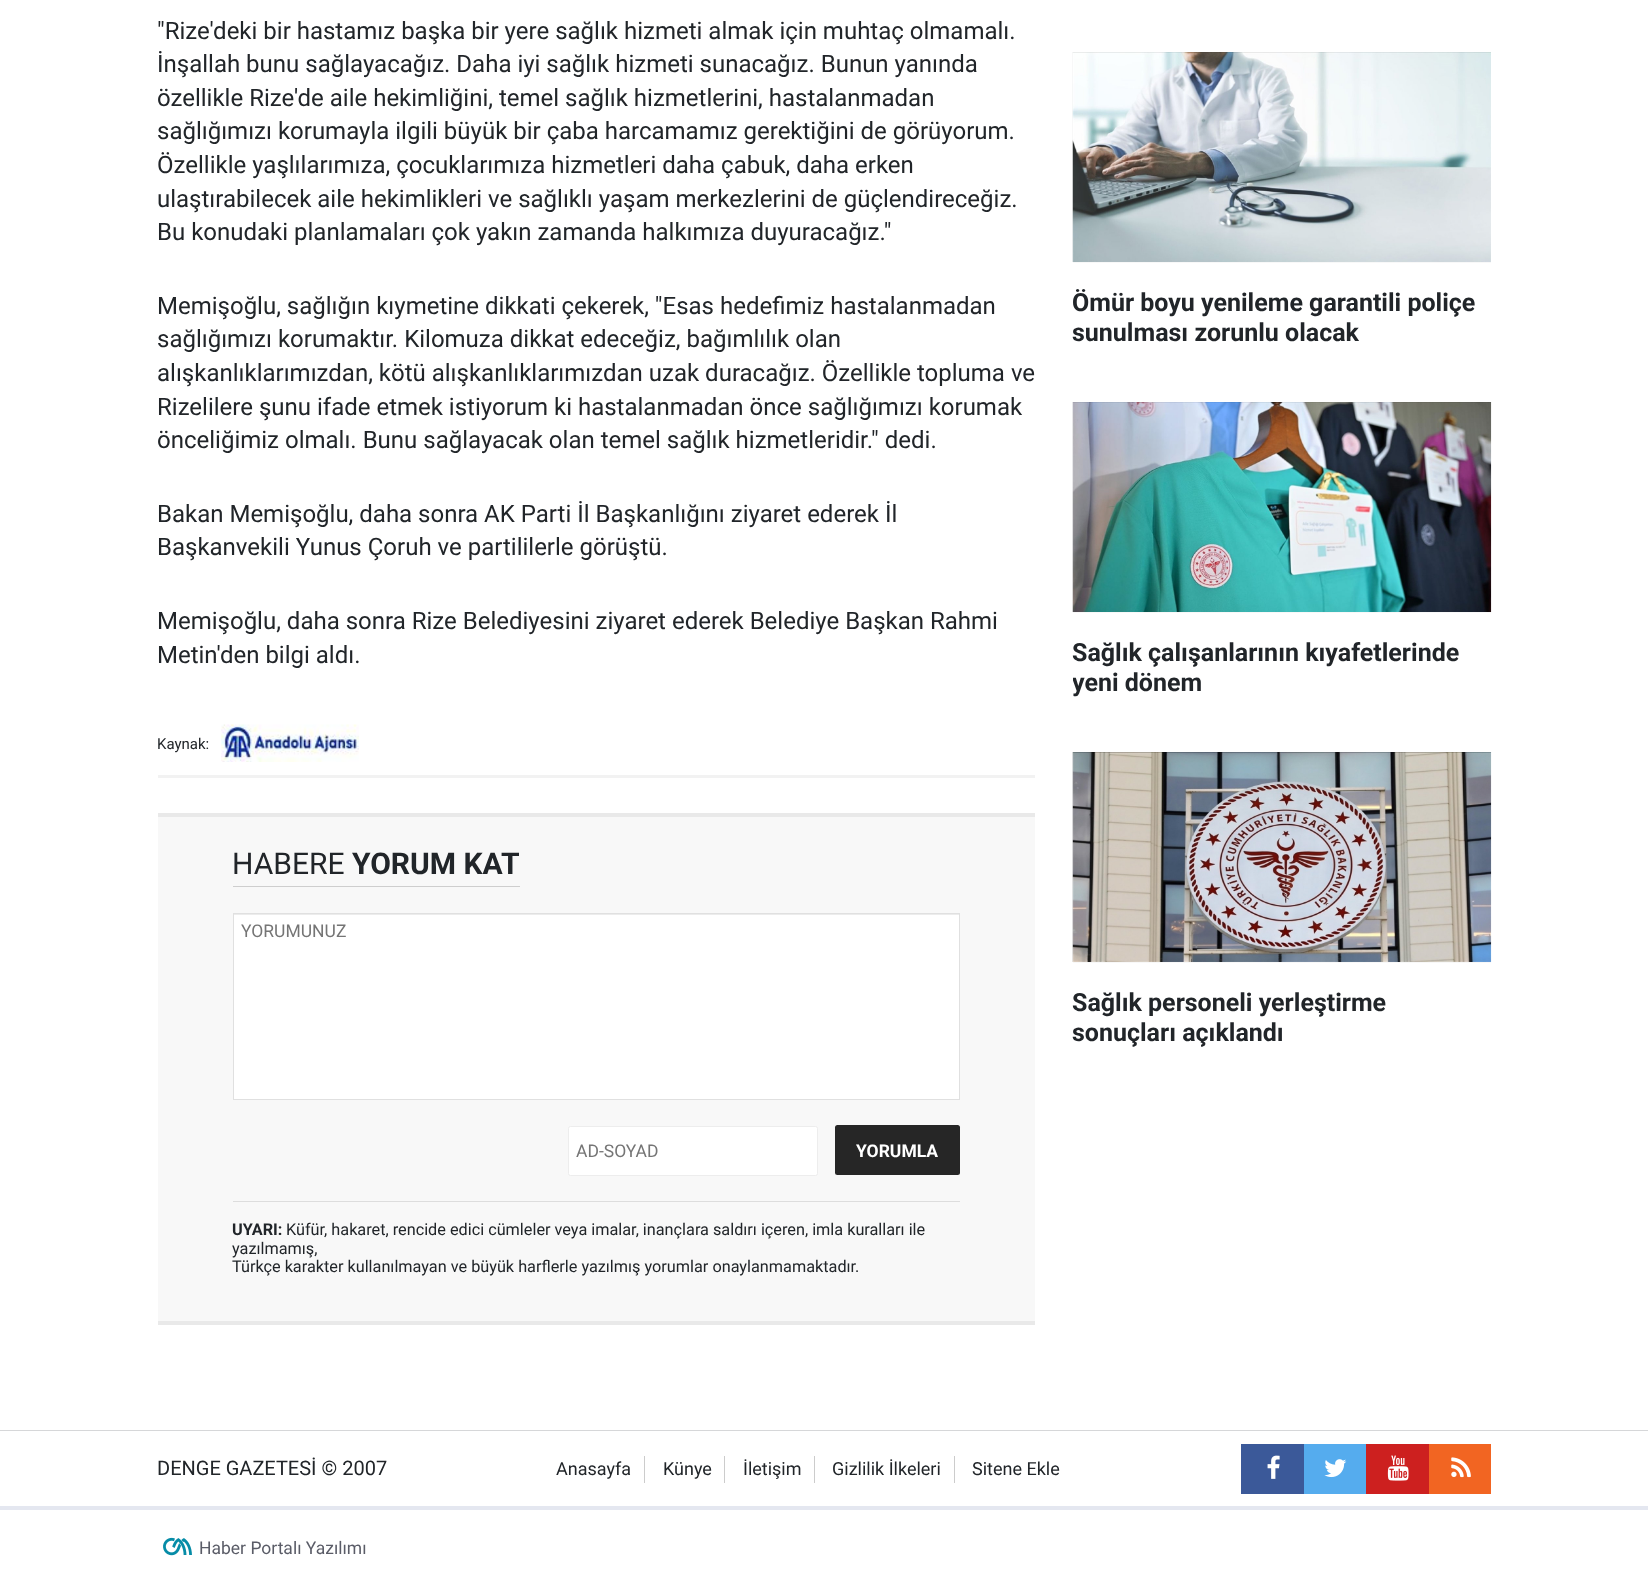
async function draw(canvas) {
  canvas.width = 1648
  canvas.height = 1585
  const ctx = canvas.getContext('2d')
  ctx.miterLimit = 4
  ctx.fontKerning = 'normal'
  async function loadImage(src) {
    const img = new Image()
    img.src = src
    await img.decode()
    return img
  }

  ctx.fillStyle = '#fff'
  ctx.fillRect(0, 0, 1648, 1585)
  ctx.font = '24px Roboto'
  ctx.fillStyle = '#212529'
  ctx.fillText('"Rize\'deki bir hastamız başka bir yere sağlık hizmeti almak için muhtaç olmamalı.', 157, 39)
  ctx.fillText('İnşallah bunu sağlayacağız. Daha iyi sağlık hizmeti sunacağız. Bunun yanında', 157, 72)
  ctx.fillText('özellikle Rize\'de aile hekimliğini, temel sağlık hizmetlerini, hastalanmadan', 157, 106)
  ctx.fillText('sağlığımızı korumayla ilgili büyük bir çaba harcamamız gerektiğini de görüyorum.', 157, 139)
  ctx.fillText('Özellikle yaşlılarımıza, çocuklarımıza hizmetleri daha çabuk, daha erken', 157, 173)
  ctx.fillText('ulaştırabilecek aile hekimlikleri ve sağlıklı yaşam merkezlerini de güçlendireceğiz.', 157, 207)
  ctx.fillText('Bu konudaki planlamaları çok yakın zamanda halkımıza duyuracağız."', 157, 240)
  ctx.fillText('Memişoğlu, sağlığın kıymetine dikkati çekerek, "Esas hedefimiz hastalanmadan', 157, 314)
  ctx.fillText('sağlığımızı korumaktır. Kilomuza dikkat edeceğiz, bağımlılık olan', 157, 347)
  ctx.fillText('alışkanlıklarımızdan, kötü alışkanlıklarımızdan uzak duracağız. Özellikle topluma ve', 157, 381)
  ctx.fillText('Rizelilere şunu ifade etmek istiyorum ki hastalanmadan önce sağlığımızı korumak', 157, 415)
  ctx.fillText('önceliğimiz olmalı. Bunu sağlayacak olan temel sağlık hizmetleridir." dedi.', 157, 448)
  ctx.fillText('Bakan Memişoğlu, daha sonra AK Parti İl Başkanlığını ziyaret ederek İl', 157, 522)
  ctx.fillText('Başkanvekili Yunus Çoruh ve partililerle görüştü.', 157, 555)
  ctx.fillText('Memişoğlu, daha sonra Rize Belediyesini ziyaret ederek Belediye Başkan Rahmi', 157, 629)
  ctx.fillText('Metin\'den bilgi aldı.', 157, 663)
  ctx.fillStyle = '#f2f2f2'
  ctx.fillRect(158, 775, 877, 3)
  ctx.font = '15px Roboto'
  ctx.fillStyle = '#212529'
  ctx.fillText('Kaynak:', 157, 749)
  ctx.drawImage(await loadImage('image0.png'), 221, 724, 138, 38)
  ctx.fillStyle = '#f8f8f8'
  ctx.fillRect(158, 817, 877, 504)
  ctx.fillStyle = '#e9e9e9'
  ctx.fillRect(158, 813, 877, 4)
  ctx.fillRect(158, 1321, 877, 4)
  ctx.fillStyle = '#cecece'
  ctx.fillRect(233, 886, 287, 1)
  ctx.font = '30px Roboto'
  ctx.fillStyle = '#212529'
  ctx.fillText('HABERE', 232, 874)
  ctx.font = 'bold 30px Roboto'
  ctx.fillText('YORUM KAT', 352, 874)
  ctx.fillStyle = '#fff'
  ctx.fillRect(234, 915, 725, 184)
  ctx.fillStyle = '#ececec'
  ctx.fillRect(234, 914, 725, 1)
  ctx.strokeStyle = '#e0e0e0'
  ctx.strokeRect(233.5, 913.5, 726, 186)
  ctx.font = '17.5px Roboto'
  ctx.fillStyle = '#757575'
  ctx.fillText('YORUMUNUZ', 241, 937)
  ctx.fillStyle = '#fff'
  ctx.beginPath()
  ctx.roundRect(568.5, 1126.5, 249, 49, 2)
  ctx.fill()
  ctx.strokeStyle = '#ededed'
  ctx.stroke()
  ctx.fillStyle = '#757575'
  ctx.fillText('AD-SOYAD', 576, 1157)
  ctx.fillStyle = '#262626'
  ctx.beginPath()
  ctx.roundRect(835, 1125, 125, 50, 2.5)
  ctx.fill()
  ctx.font = 'bold 17.5px Roboto'
  ctx.fillStyle = '#fff'
  ctx.fillText('YORUMLA', 856, 1157)
  ctx.fillStyle = '#ddd'
  ctx.fillRect(233, 1201, 727, 1)
  ctx.font = 'bold 16.25px Roboto'
  ctx.fillStyle = '#212529'
  ctx.fillText('UYARI:', 232, 1235)
  ctx.font = '16.25px Roboto'
  ctx.fillText('Küfür, hakaret, rencide edici cümleler veya imalar, inançlara saldırı içeren, imla kuralları ile', 286, 1235)
  ctx.fillText('yazılmamış,', 232, 1254)
  ctx.fillText('Türkçe karakter kullanılmayan ve büyük harflerle yazılmış yorumlar onaylanmamaktadır.', 232, 1272)
  ctx.drawImage(await loadImage('image1.png'), 1072, 52, 419, 210)
  ctx.fillStyle = '#f8f8f8'
  ctx.fillRect(1073, 262, 418, 1)
  ctx.font = 'bold 25px Roboto'
  ctx.fillStyle = '#212529'
  ctx.fillText('Ömür boyu yenileme garantili poliçe', 1072, 311)
  ctx.fillText('sunulması zorunlu olacak', 1072, 341)
  ctx.drawImage(await loadImage('image2.png'), 1072, 402, 420, 210)
  ctx.fillStyle = '#f8f8f8'
  ctx.fillRect(1073, 612, 418, 1)
  ctx.fillStyle = '#212529'
  ctx.fillText('Sağlık çalışanlarının kıyafetlerinde', 1072, 661)
  ctx.save()
  ctx.beginPath()
  ctx.rect(1073, 638, 418, 60)
  ctx.clip()
  ctx.fillText('yeni dönem', 1072, 691)
  ctx.restore()
  ctx.drawImage(await loadImage('image3.png'), 1072, 752, 420, 210)
  ctx.fillStyle = '#f8f8f8'
  ctx.fillRect(1073, 962, 418, 1)
  ctx.fillStyle = '#212529'
  ctx.fillText('Sağlık personeli yerleştirme', 1072, 1011)
  ctx.fillText('sonuçları açıklandı', 1072, 1041)
  ctx.fillStyle = '#d6d7d9'
  ctx.fillRect(0, 1430, 1648, 1)
  ctx.fillStyle = '#e4e7f0'
  ctx.fillRect(0, 1506, 1648, 4)
  ctx.font = '20px Roboto'
  ctx.fillStyle = '#212529'
  ctx.fillText('DENGE GAZETESİ © 2007', 157, 1475)
  ctx.fillStyle = '#ccc'
  ctx.fillRect(644, 1456, 1, 27)
  ctx.font = '18px Roboto'
  ctx.fillStyle = '#212529'
  ctx.fillText('Anasayfa', 556, 1475)
  ctx.fillStyle = '#ccc'
  ctx.fillRect(724, 1456, 1, 27)
  ctx.fillStyle = '#212529'
  ctx.fillText('Künye', 663, 1475)
  ctx.fillStyle = '#ccc'
  ctx.fillRect(814, 1456, 1, 27)
  ctx.fillStyle = '#212529'
  ctx.fillText('İletişim', 743, 1475)
  ctx.fillStyle = '#ccc'
  ctx.fillRect(954, 1456, 1, 27)
  ctx.fillStyle = '#212529'
  ctx.fillText('Gizlilik İlkeleri', 832, 1475)
  ctx.fillText('Sitene Ekle', 972, 1475)
  ctx.fillStyle = '#3b5999'
  ctx.fillRect(1241, 1444, 63, 50)
  ctx.drawImage(await loadImage('image4.png'), 1267, 1455, 13, 24)
  ctx.fillStyle = '#55acee'
  ctx.fillRect(1304, 1444, 62, 50)
  ctx.drawImage(await loadImage('image5.png'), 1324, 1459, 23, 19)
  ctx.fillStyle = '#cd201f'
  ctx.fillRect(1366, 1444, 63, 50)
  ctx.drawImage(await loadImage('image6.png'), 1387, 1455, 22, 26)
  ctx.fillStyle = '#f26522'
  ctx.fillRect(1429, 1444, 62, 50)
  ctx.drawImage(await loadImage('image7.png'), 1451, 1457, 20, 21)
  ctx.drawImage(await loadImage('image8.png'), 163, 1537, 29, 19)
  ctx.font = '17.5px Roboto'
  ctx.fillStyle = '#5a5c67'
  ctx.fillText('Haber Portalı Yazılımı', 199, 1554)
}

draw(document.querySelector('canvas'))
